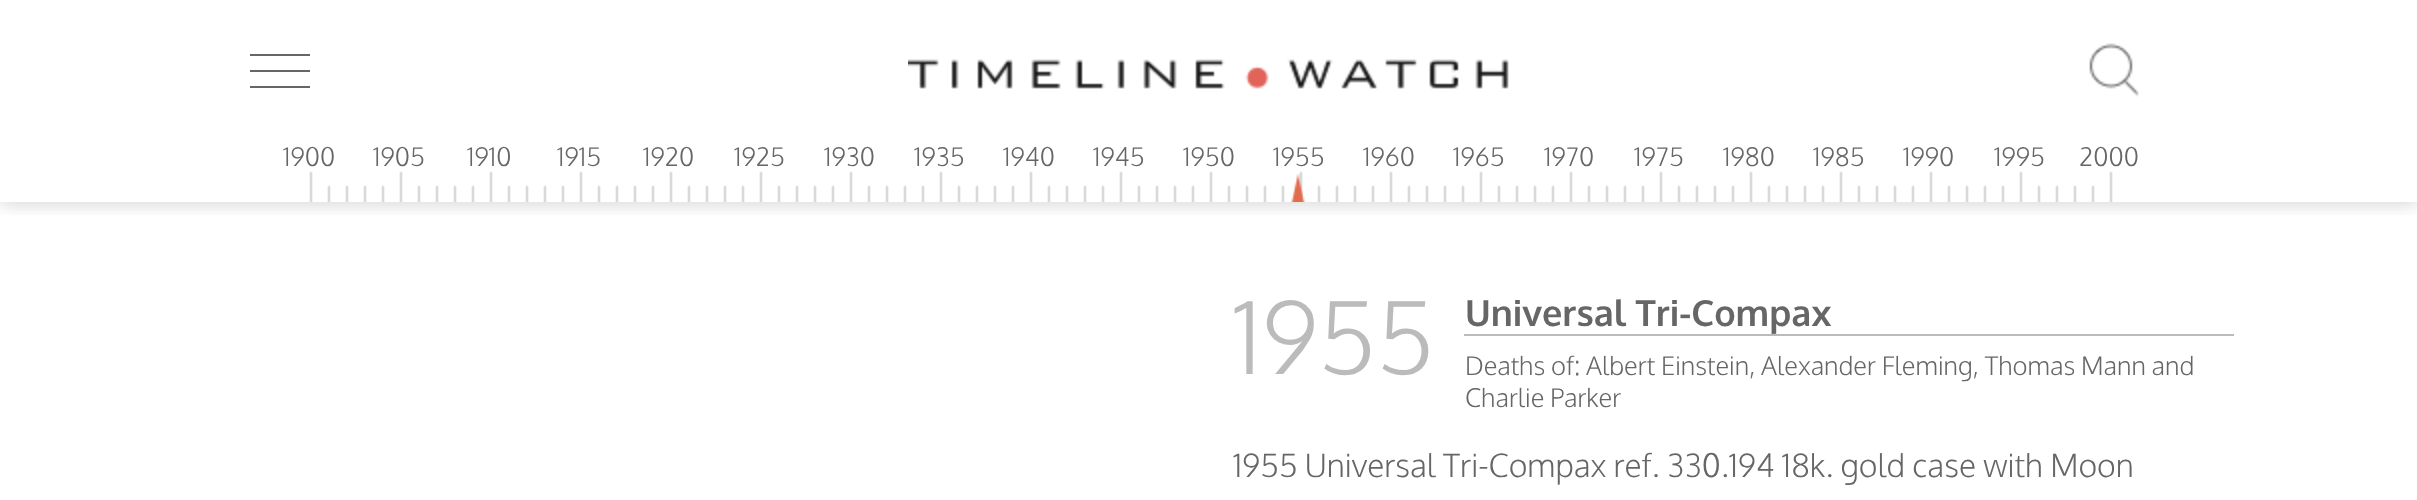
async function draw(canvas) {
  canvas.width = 2417
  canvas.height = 500
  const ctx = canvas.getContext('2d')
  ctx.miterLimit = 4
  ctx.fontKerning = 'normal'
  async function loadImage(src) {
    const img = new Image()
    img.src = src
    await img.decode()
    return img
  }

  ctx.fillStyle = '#fff'
  ctx.fillRect(0, 0, 2417, 500)
  ctx.save()
  ctx.beginPath()
  ctx.rect(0, 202, 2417, 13)
  ctx.clip()
  ctx.fillStyle = '#00000033'
  ctx.filter = 'blur(10px)'
  ctx.beginPath()
  ctx.rect(0, 0, 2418, 202)
  ctx.fill()
  ctx.filter = 'none'
  ctx.restore()
  ctx.fillStyle = '#666'
  ctx.beginPath()
  ctx.moveTo(250, 54)
  ctx.lineTo(310, 54)
  ctx.lineTo(310, 56)
  ctx.lineTo(250, 56)
  ctx.closePath()
  ctx.moveTo(250, 70)
  ctx.lineTo(310, 70)
  ctx.lineTo(310, 72)
  ctx.lineTo(250, 72)
  ctx.closePath()
  ctx.moveTo(250, 86)
  ctx.lineTo(310, 86)
  ctx.lineTo(310, 88)
  ctx.lineTo(250, 88)
  ctx.closePath()
  ctx.fill()
  ctx.drawImage(await loadImage('image0.png'), 908, 59, 601, 30)
  ctx.drawImage(await loadImage('image1.png'), 2089, 43, 50, 54)
  ctx.drawImage(await loadImage('image2.png'), 309, 171, 1804, 31)
  ctx.font = '300 25.6px Oxygen'
  ctx.fillText('1900', 283, 166)
  ctx.fillText('1905', 373, 166)
  ctx.fillText('1910', 467, 166)
  ctx.fillText('1915', 557, 166)
  ctx.fillText('1920', 643, 166)
  ctx.fillText('1925', 734, 166)
  ctx.fillText('1930', 824, 166)
  ctx.fillText('1935', 914, 166)
  ctx.fillText('1940', 1003, 166)
  ctx.fillText('1945', 1093, 166)
  ctx.fillText('1950', 1183, 166)
  ctx.fillText('1955', 1273, 166)
  ctx.fillText('1960', 1363, 166)
  ctx.fillText('1965', 1453, 166)
  ctx.fillText('1970', 1544, 166)
  ctx.fillText('1975', 1634, 166)
  ctx.fillText('1980', 1723, 166)
  ctx.fillText('1985', 1813, 166)
  ctx.fillText('1990', 1903, 166)
  ctx.fillText('1995', 1994, 166)
  ctx.fillText('2000', 2079, 166)
  ctx.drawImage(await loadImage('image3.png'), 1291, 174, 14, 28)
  ctx.font = '300 100px Oxygen'
  ctx.fillStyle = '#bbb'
  ctx.fillText('1955', 1233, 374)
  ctx.font = 'bold 36px Oxygen'
  ctx.fillStyle = '#666'
  ctx.fillText('Universal Tri-Compax', 1465, 326)
  ctx.fillStyle = '#bbb'
  ctx.fillRect(1464, 334, 770, 2)
  ctx.font = '300 25.6px Oxygen'
  ctx.fillStyle = '#666'
  ctx.fillText('Deaths of: Albert Einstein, Alexander Fleming, Thomas Mann and', 1465, 375)
  ctx.fillText('Charlie Parker', 1465, 407)
  ctx.font = '300 32px Oxygen'
  ctx.fillText('1955 Universal Tri-Compax ref. 330.194 18k. gold case with Moon', 1233, 477)
}

draw(document.querySelector('canvas'))
